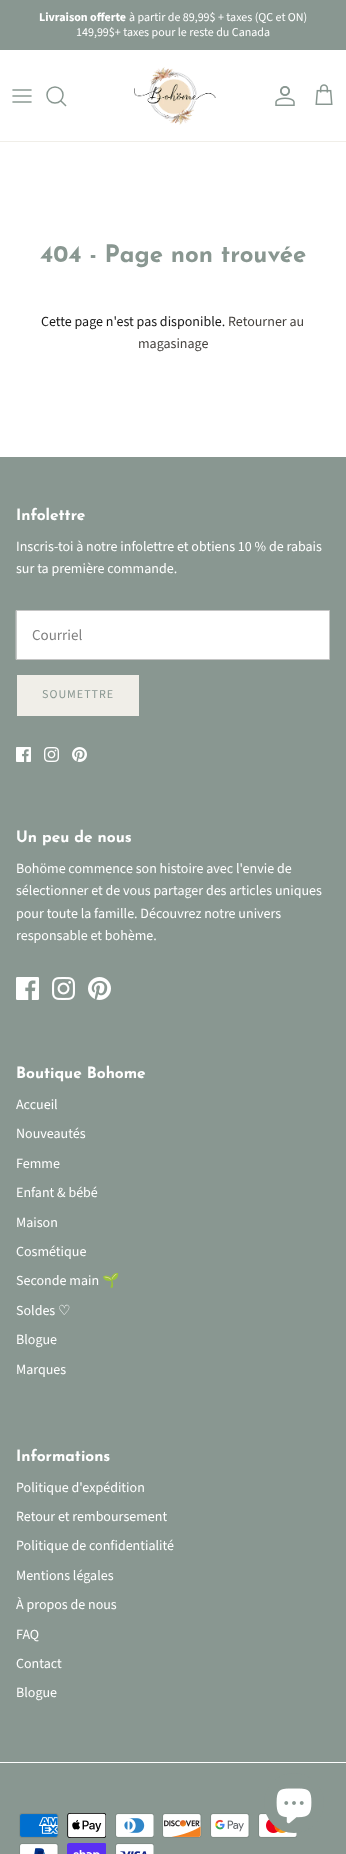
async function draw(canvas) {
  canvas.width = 346
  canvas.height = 1854
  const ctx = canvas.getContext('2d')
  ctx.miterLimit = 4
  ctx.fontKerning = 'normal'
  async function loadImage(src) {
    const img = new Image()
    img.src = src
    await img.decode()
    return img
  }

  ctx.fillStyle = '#fff'
  ctx.fillRect(0, 0, 346, 1854)
  ctx.fillStyle = '#899791'
  ctx.fillRect(0, 0, 346, 50)
  ctx.font = 'bold 12px Source Sans Pro'
  ctx.fillStyle = '#fff'
  ctx.fillText('Livraison offerte', 39, 21)
  ctx.font = '12px Source Sans Pro'
  ctx.fillText('à partir de 89,99$ + taxes (QC et ON)', 129, 21)
  ctx.fillText('149,99$+ taxes pour le reste du Canada', 76, 36)
  ctx.fillStyle = '#f0eee8'
  ctx.fillRect(0, 141, 346, 1)
  ctx.drawImage(await loadImage('image0.png'), 12, 89, 20, 14)
  ctx.beginPath()
  ctx.arc(55, 95, 8, 0, 2 * Math.PI)
  ctx.strokeStyle = '#899791'
  ctx.lineWidth = 1.5
  ctx.stroke()
  ctx.beginPath()
  ctx.moveTo(61, 101)
  ctx.lineTo(65.5, 105.5)
  ctx.lineCap = 'square'
  ctx.stroke()
  ctx.drawImage(await loadImage('image1.png'), 134, 67, 82, 58)
  ctx.drawImage(await loadImage('image2.png'), 275, 86, 20, 20)
  ctx.drawImage(await loadImage('image3.png'), 315, 84, 18, 21)
  ctx.font = 'bold 24px Josefin Sans'
  ctx.fillStyle = '#899791'
  ctx.fillText('404 - Page non trouvée', 40, 262)
  ctx.font = '14px Source Sans Pro'
  ctx.fillStyle = '#171717'
  ctx.fillText('Cette page n\'est pas disponible.', 41, 326)
  ctx.fillStyle = '#45423e'
  ctx.fillText('Retourner au', 228, 326)
  ctx.fillText('magasinage', 138, 348)
  ctx.fillStyle = '#899791'
  ctx.fillRect(0, 457, 346, 1397)
  ctx.font = 'bold 15.5px Josefin Sans'
  ctx.fillStyle = '#fff'
  ctx.fillText('Infolettre', 16, 520)
  ctx.font = '14px Source Sans Pro'
  ctx.fillText('Inscris-toi à notre infolettre et obtiens 10 % de rabais', 16, 551)
  ctx.fillText('sur ta première commande.', 16, 573)
  ctx.beginPath()
  ctx.rect(16.5, 610.5, 313, 49)
  ctx.fill()
  ctx.strokeStyle = '#c5c5c5'
  ctx.lineWidth = 1
  ctx.stroke()
  ctx.font = '15px Source Sans Pro'
  ctx.fillStyle = '#808080'
  ctx.fillText('Courriel', 32, 640)
  ctx.fillStyle = '#f0eee8'
  ctx.fillRect(17, 675, 122, 41)
  ctx.letterSpacing = '1px'
  ctx.font = '12px Source Sans Pro'
  ctx.fillStyle = '#899791'
  ctx.fillText('SOUMETTRE', 42, 698)
  ctx.drawImage(await loadImage('image4.png'), 16, 747, 15, 15)
  ctx.drawImage(await loadImage('image5.png'), 44, 747, 15, 15)
  ctx.drawImage(await loadImage('image6.png'), 72, 747, 15, 15)
  ctx.letterSpacing = '0px'
  ctx.font = 'bold 15.5px Josefin Sans'
  ctx.fillStyle = '#fff'
  ctx.fillText('Un peu de nous', 16, 842)
  ctx.font = '14px Source Sans Pro'
  ctx.fillText('Bohöme commence son histoire avec l\'envie de', 16, 873)
  ctx.fillText('sélectionner et de vous partager des articles uniques', 16, 895)
  ctx.fillText('pour toute la famille. Découvrez notre univers', 16, 918)
  ctx.fillText('responsable et bohème.', 16, 940)
  ctx.drawImage(await loadImage('image7.png'), 16, 977, 23, 23)
  ctx.drawImage(await loadImage('image8.png'), 52, 977, 23, 23)
  ctx.drawImage(await loadImage('image9.png'), 88, 977, 23, 23)
  ctx.font = 'bold 15.5px Josefin Sans'
  ctx.fillText('Boutique Bohome', 16, 1078)
  ctx.font = '14px Source Sans Pro'
  ctx.fillText('Accueil', 16, 1109)
  ctx.fillText('Nouveautés', 16, 1138)
  ctx.fillText('Femme', 16, 1168)
  ctx.fillText('Enfant & bébé', 16, 1197)
  ctx.fillText('Maison', 16, 1227)
  ctx.fillText('Cosmétique', 16, 1256)
  ctx.fillText('Seconde main', 16, 1285)
  ctx.font = '14px Noto Color Emoji'
  ctx.fillText('🌱', 102, 1285)
  ctx.font = '14px Source Sans Pro'
  ctx.fillText('Soldes', 16, 1315)
  ctx.font = '14px DejaVu Sans'
  ctx.fillText('♡', 58, 1315)
  ctx.font = '14px Source Sans Pro'
  ctx.fillText('Blogue', 16, 1344)
  ctx.fillText('Marques', 16, 1374)
  ctx.font = 'bold 15.5px Josefin Sans'
  ctx.fillText('Informations', 16, 1461)
  ctx.font = '14px Source Sans Pro'
  ctx.fillText('Politique d\'expédition', 16, 1492)
  ctx.fillText('Retour et remboursement', 16, 1521)
  ctx.fillText('Politique de confidentialité', 16, 1550)
  ctx.fillText('Mentions légales', 16, 1580)
  ctx.fillText('À propos de nous', 16, 1609)
  ctx.fillText('FAQ', 16, 1639)
  ctx.fillText('Contact', 16, 1668)
  ctx.fillText('Blogue', 16, 1697)
  ctx.fillRect(0, 1762, 346, 1)
  ctx.drawImage(await loadImage('image10.png'), 19, 1813, 40, 25)
  ctx.drawImage(await loadImage('image11.png'), 67, 1813, 39, 25)
  ctx.drawImage(await loadImage('image12.png'), 115, 1813, 39, 25)
  ctx.drawImage(await loadImage('image13.png'), 162, 1813, 40, 25)
  ctx.drawImage(await loadImage('image14.png'), 210, 1813, 40, 25)
  ctx.drawImage(await loadImage('image15.png'), 258, 1813, 39, 25)
  ctx.drawImage(await loadImage('image16.png'), 19, 1843, 40, 11)
  ctx.drawImage(await loadImage('image17.png'), 67, 1843, 39, 11)
  ctx.drawImage(await loadImage('image18.png'), 115, 1843, 39, 11)
  ctx.fillStyle = '#899791'
  ctx.beginPath()
  ctx.arc(294, 1803, 30, 0, 2 * Math.PI)
  ctx.fill()
  ctx.drawImage(await loadImage('image19.png'), 276, 1788, 36, 36)
}

draw(document.querySelector('canvas'))
